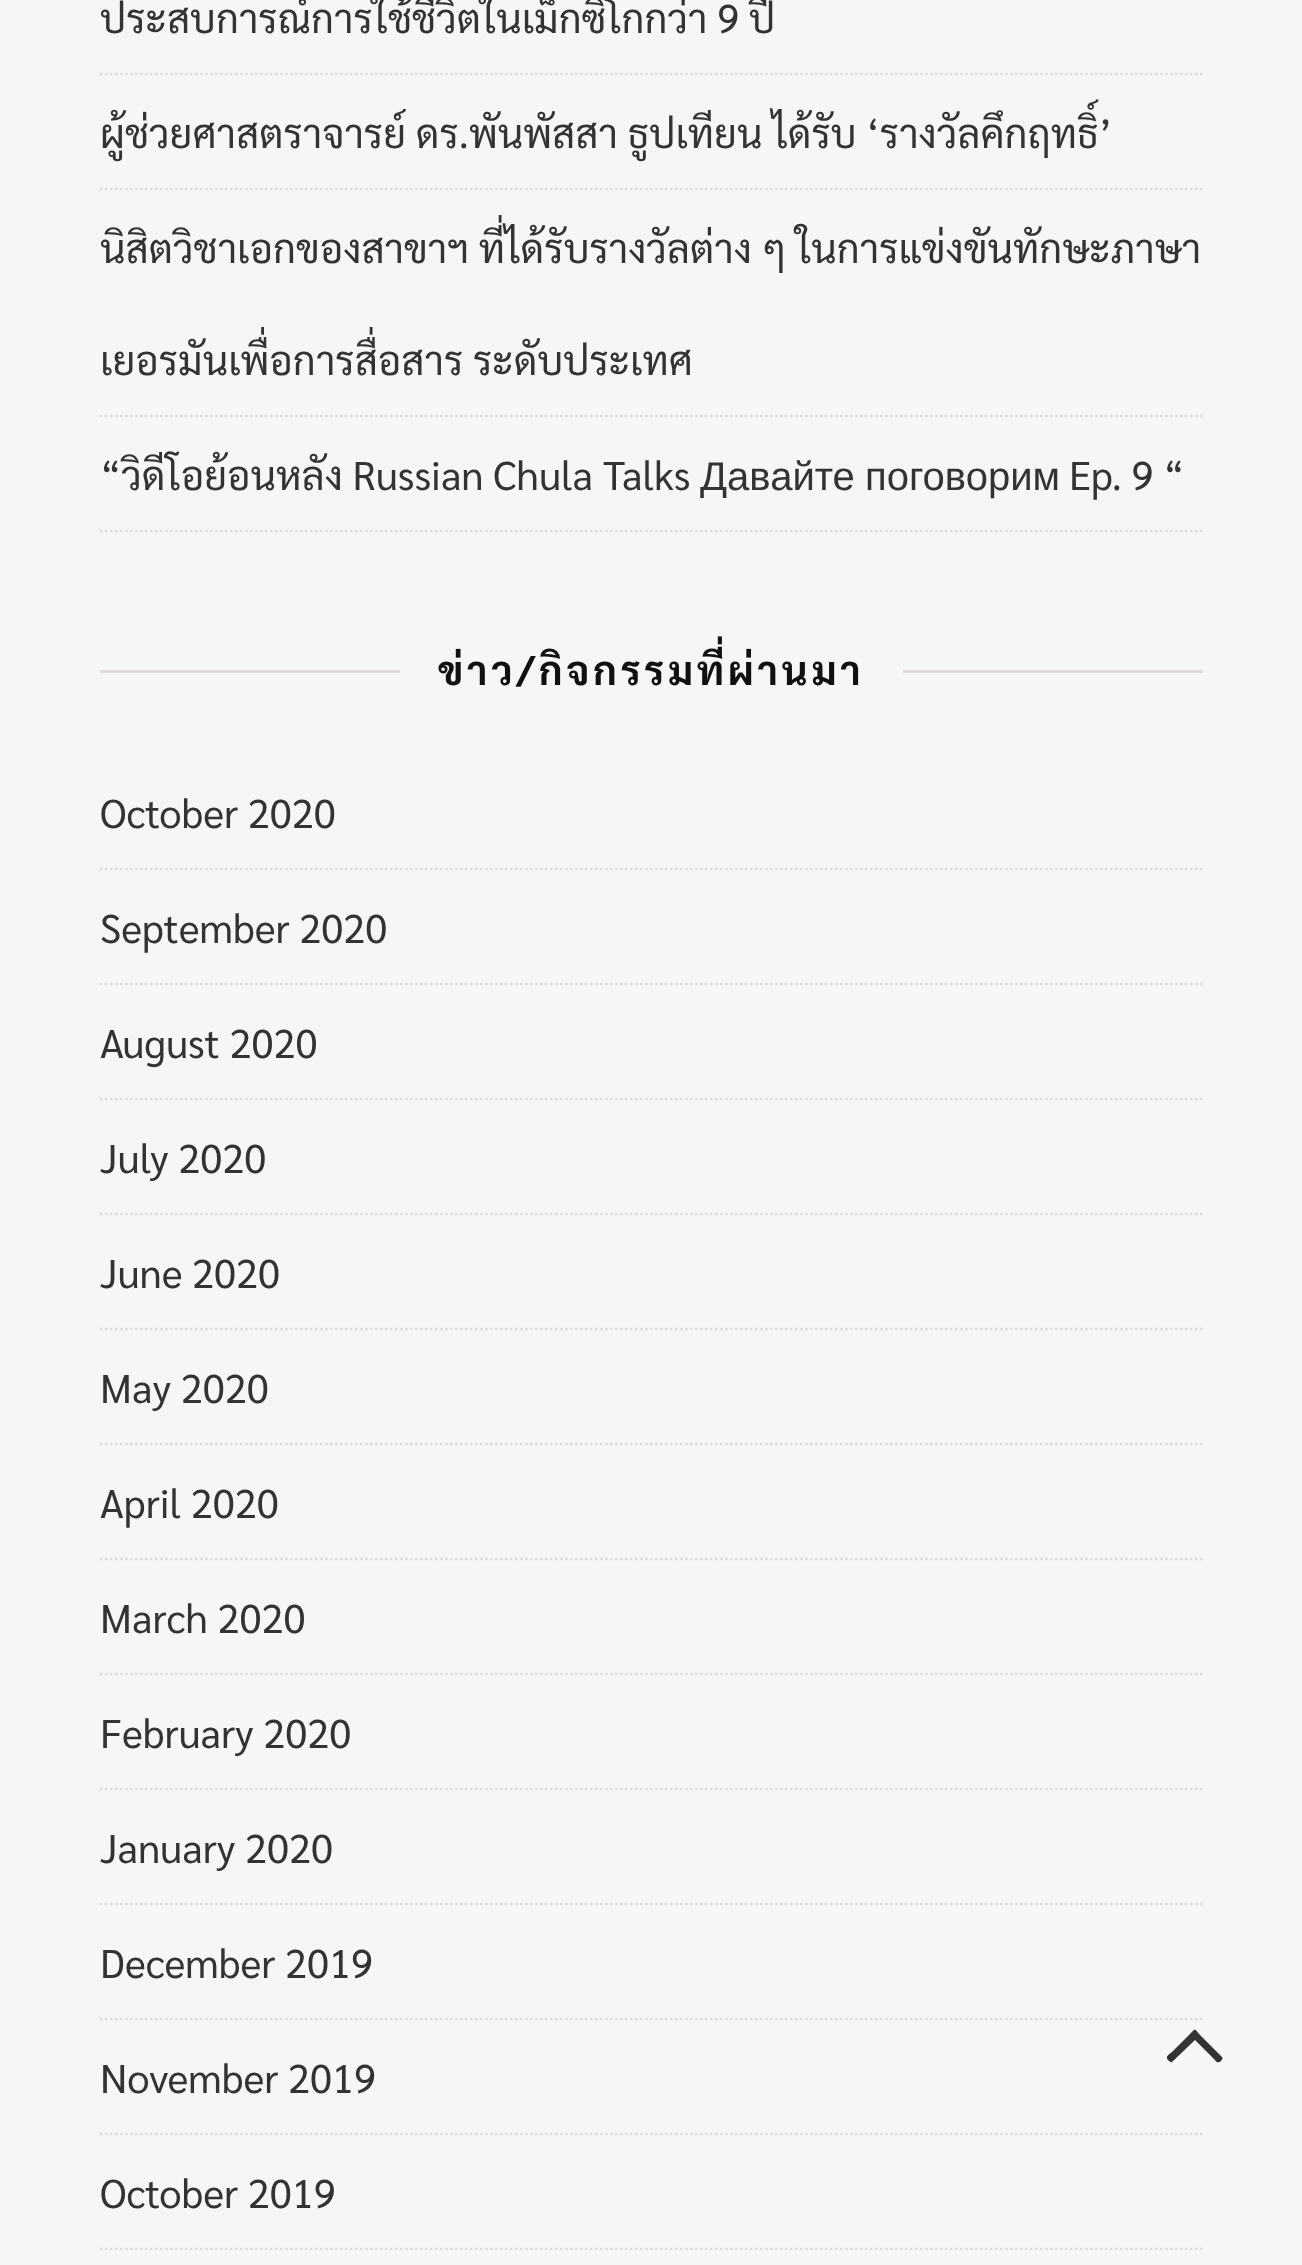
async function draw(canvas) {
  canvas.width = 1302
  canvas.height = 2265
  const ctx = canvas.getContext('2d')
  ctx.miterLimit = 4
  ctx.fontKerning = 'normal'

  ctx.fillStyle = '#f6f6f6'
  ctx.fillRect(0, 0, 1302, 2265)
  ctx.beginPath()
  ctx.moveTo(100, 74)
  ctx.lineTo(1202.5, 74)
  ctx.strokeStyle = '#e0dbdb'
  ctx.lineWidth = 2.5
  ctx.setLineDash([2.5, 2.5])
  ctx.stroke()
  ctx.font = '40px Sarabun'
  ctx.fillStyle = '#333'
  ctx.fillText('ประสบการณ์การใช้ชีวิตในเม็กซิโกกว่า 9 ปี', 100, 33)
  ctx.beginPath()
  ctx.moveTo(100, 189)
  ctx.lineTo(1202.5, 189)
  ctx.stroke()
  ctx.save()
  ctx.beginPath()
  ctx.rect(100, 0, 1103, 533)
  ctx.clip()
  ctx.fillText('ผู้ช่วยศาสตราจารย์ ดร.พันพัสสา ธูปเทียน ได้รับ ‘รางวัลคึกฤทธิ์’', 100, 148)
  ctx.restore()
  ctx.beginPath()
  ctx.moveTo(100, 416)
  ctx.lineTo(1202.5, 416)
  ctx.stroke()
  ctx.save()
  ctx.beginPath()
  ctx.rect(100, 0, 1103, 533)
  ctx.clip()
  ctx.fillText('นิสิตวิชาเอกของสาขาฯ ที่ได้รับรางวัลต่าง ๆ ในการแข่งขันทักษะภาษา', 100, 263)
  ctx.restore()
  ctx.fillText('เยอรมันเพื่อการสื่อสาร ระดับประเทศ', 100, 375)
  ctx.beginPath()
  ctx.moveTo(100, 531)
  ctx.lineTo(1202.5, 531)
  ctx.stroke()
  ctx.fillText('“วิดีโอย้อนหลัง Russian Chula Talks', 100, 490)
  ctx.font = '40px Liberation Sans'
  ctx.fillText('Давайте', 700, 490)
  ctx.fillText('поговорим', 865, 490)
  ctx.font = '40px Sarabun'
  ctx.fillText('Ep. 9 “', 1069, 490)
  ctx.fillStyle = '#e0dbdb'
  ctx.fillRect(100, 670, 300, 3)
  ctx.letterSpacing = '3.75px'
  ctx.font = 'bold 40px Sarabun'
  ctx.fillStyle = '#111'
  ctx.fillText('ข่าว/กิจกรรมที่ผ่านมา', 438, 685)
  ctx.fillStyle = '#e0dbdb'
  ctx.fillRect(903, 670, 300, 3)
  ctx.beginPath()
  ctx.moveTo(100, 869)
  ctx.lineTo(1202.5, 869)
  ctx.stroke()
  ctx.letterSpacing = '0px'
  ctx.font = '40px Sarabun'
  ctx.fillStyle = '#333'
  ctx.fillText('October 2020', 100, 828)
  ctx.beginPath()
  ctx.moveTo(100, 984)
  ctx.lineTo(1202.5, 984)
  ctx.stroke()
  ctx.fillText('September 2020', 100, 943)
  ctx.beginPath()
  ctx.moveTo(100, 1099)
  ctx.lineTo(1202.5, 1099)
  ctx.stroke()
  ctx.fillText('August 2020', 100, 1058)
  ctx.beginPath()
  ctx.moveTo(100, 1214)
  ctx.lineTo(1202.5, 1214)
  ctx.stroke()
  ctx.fillText('July 2020', 100, 1173)
  ctx.beginPath()
  ctx.moveTo(100, 1329)
  ctx.lineTo(1202.5, 1329)
  ctx.stroke()
  ctx.fillText('June 2020', 100, 1288)
  ctx.beginPath()
  ctx.moveTo(100, 1444)
  ctx.lineTo(1202.5, 1444)
  ctx.stroke()
  ctx.fillText('May 2020', 100, 1403)
  ctx.beginPath()
  ctx.moveTo(100, 1559)
  ctx.lineTo(1202.5, 1559)
  ctx.stroke()
  ctx.fillText('April 2020', 100, 1518)
  ctx.beginPath()
  ctx.moveTo(100, 1674)
  ctx.lineTo(1202.5, 1674)
  ctx.stroke()
  ctx.fillText('March 2020', 100, 1633)
  ctx.beginPath()
  ctx.moveTo(100, 1789)
  ctx.lineTo(1202.5, 1789)
  ctx.stroke()
  ctx.fillText('February 2020', 100, 1748)
  ctx.beginPath()
  ctx.moveTo(100, 1904)
  ctx.lineTo(1202.5, 1904)
  ctx.stroke()
  ctx.fillText('January 2020', 100, 1863)
  ctx.beginPath()
  ctx.moveTo(100, 2019)
  ctx.lineTo(1202.5, 2019)
  ctx.stroke()
  ctx.fillText('December 2019', 100, 1978)
  ctx.beginPath()
  ctx.moveTo(100, 2134)
  ctx.lineTo(1202.5, 2134)
  ctx.stroke()
  ctx.fillText('November 2019', 100, 2093)
  ctx.save()
  ctx.beginPath()
  ctx.rect(100, 633, 1103, 1617)
  ctx.clip()
  ctx.beginPath()
  ctx.moveTo(100, 2249)
  ctx.lineTo(1202.5, 2249)
  ctx.stroke()
  ctx.restore()
  ctx.fillText('October 2019', 100, 2208)
  ctx.beginPath()
  ctx.moveTo(1222, 2057)
  ctx.bezierCurveTo(1223, 2058, 1222, 2060, 1221, 2061)
  ctx.bezierCurveTo(1217, 2064, 1217, 2062, 1213, 2058)
  ctx.lineTo(1195, 2040)
  ctx.lineTo(1172, 2062)
  ctx.bezierCurveTo(1171, 2063, 1170, 2061, 1169, 2061)
  ctx.bezierCurveTo(1165, 2057, 1167, 2056, 1172, 2052)
  ctx.lineTo(1189, 2035)
  ctx.bezierCurveTo(1196, 2028, 1194, 2028, 1200, 2035)
  ctx.closePath()
  ctx.fill()
}

draw(document.querySelector('canvas'))
